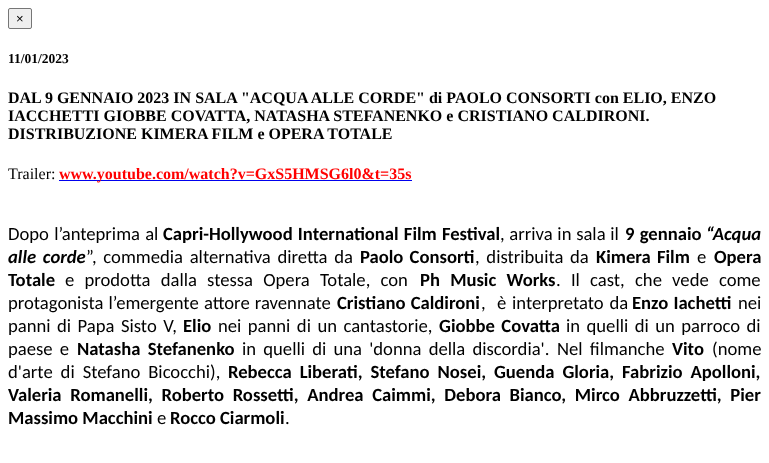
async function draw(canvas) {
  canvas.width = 769
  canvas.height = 463
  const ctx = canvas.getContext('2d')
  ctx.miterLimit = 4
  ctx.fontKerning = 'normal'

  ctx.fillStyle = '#fff'
  ctx.fillRect(0, 0, 769, 463)
  ctx.fillStyle = '#efefef'
  ctx.beginPath()
  ctx.roundRect(8.5, 8.5, 23, 20, 1.5)
  ctx.fill()
  ctx.strokeStyle = '#767676'
  ctx.stroke()
  ctx.font = '13px Liberation Sans'
  ctx.fillStyle = '#000'
  ctx.fillText('×', 16, 23)
  ctx.font = 'bold 13.5px Liberation Serif'
  ctx.fillText('11/01/2023', 8, 63)
  ctx.font = 'bold 16px Liberation Serif'
  ctx.fillText('DAL 9 GENNAIO 2023 IN SALA "ACQUA ALLE CORDE" di PAOLO CONSORTI con ELIO, ENZO', 8, 103)
  ctx.fillText('IACCHETTI GIOBBE COVATTA, NATASHA STEFANENKO e CRISTIANO CALDIRONI.', 8, 121)
  ctx.fillText('DISTRIBUZIONE KIMERA FILM e OPERA TOTALE', 8, 139)
  ctx.font = '16px Liberation Serif'
  ctx.fillText('Trailer:', 8, 179)
  ctx.fillStyle = '#00e'
  ctx.fillRect(59, 180, 353, 1)
  ctx.font = 'bold 16px Liberation Serif'
  ctx.fillStyle = '#f00'
  ctx.fillText('www.youtube.com/watch?v=GxS5HMSG6l0&t=35s', 59, 179)
  ctx.wordSpacing = '1px'
  ctx.font = '18.65px Carlito'
  ctx.fillStyle = '#000'
  ctx.fillText('Dopo l’anteprima al', 8, 240)
  ctx.font = 'bold 18.65px Carlito'
  ctx.fillText('Capri-Hollywood International Film Festival', 163, 240)
  ctx.wordSpacing = '0.5px'
  ctx.font = '18.65px Carlito'
  ctx.fillText(', arriva in sala il', 500, 240)
  ctx.wordSpacing = '1px'
  ctx.font = 'bold 18.65px Carlito'
  ctx.fillText('9 gennaio', 625, 240)
  ctx.wordSpacing = '0px'
  ctx.font = 'italic bold 18.65px Carlito'
  ctx.fillText('“Acqua', 706, 240)
  ctx.wordSpacing = '2.5px'
  ctx.fillText('alle corde', 8, 263)
  ctx.font = '18.65px Carlito'
  ctx.fillText('”, commedia alternativa diretta da', 86, 263)
  ctx.wordSpacing = '2px'
  ctx.font = 'bold 18.65px Carlito'
  ctx.fillText('Paolo Consorti', 360, 263)
  ctx.wordSpacing = '2.5px'
  ctx.font = '18.65px Carlito'
  ctx.fillText(', distribuita da', 475, 263)
  ctx.wordSpacing = '2px'
  ctx.font = 'bold 18.65px Carlito'
  ctx.fillText('Kimera Film', 596, 263)
  ctx.wordSpacing = '0px'
  ctx.font = '18.65px Carlito'
  ctx.fillText('e', 697, 263)
  ctx.font = 'bold 18.65px Carlito'
  ctx.fillText('Opera', 714, 263)
  ctx.fillText('Totale', 8, 286)
  ctx.wordSpacing = '6px'
  ctx.font = '18.65px Carlito'
  ctx.fillText('e prodotta dalla stessa Opera Totale, con', 65, 286)
  ctx.font = 'bold 18.65px Carlito'
  ctx.fillText('Ph Music Works', 420, 286)
  ctx.font = '18.65px Carlito'
  ctx.fillText('. Il cast, che vede come', 556, 286)
  ctx.wordSpacing = '1px'
  ctx.fillText('protagonista l’emergente attore ravennate', 8, 309)
  ctx.font = 'bold 18.65px Carlito'
  ctx.fillText('Cristiano Caldironi', 337, 309)
  ctx.wordSpacing = '1.5px'
  ctx.font = '18.65px Carlito'
  ctx.fillText(',  è interpretato da', 481, 309)
  ctx.wordSpacing = '1px'
  ctx.font = 'bold 18.65px Carlito'
  ctx.fillText('Enzo Iachetti', 632, 309)
  ctx.wordSpacing = '0px'
  ctx.font = '18.65px Carlito'
  ctx.fillText('nei', 738, 309)
  ctx.wordSpacing = '2.25px'
  ctx.fillText('panni di Papa Sisto V,', 8, 332)
  ctx.wordSpacing = '0px'
  ctx.font = 'bold 18.65px Carlito'
  ctx.fillText('Elio', 183, 332)
  ctx.wordSpacing = '2.25px'
  ctx.font = '18.65px Carlito'
  ctx.fillText('nei panni di un cantastorie,', 218, 332)
  ctx.font = 'bold 18.65px Carlito'
  ctx.fillText('Giobbe Covatta', 439, 332)
  ctx.font = '18.65px Carlito'
  ctx.fillText('in quelli di un parroco di', 566, 332)
  ctx.wordSpacing = '3px'
  ctx.fillText('paese e', 8, 355)
  ctx.font = 'bold 18.65px Carlito'
  ctx.fillText('Natasha Stefanenko', 77, 355)
  ctx.font = '18.65px Carlito'
  ctx.fillText('in quelli di una \'donna della discordia\'.', 242, 355)
  ctx.fillText('Nel filmanche', 557, 355)
  ctx.wordSpacing = '0px'
  ctx.font = 'bold 18.65px Carlito'
  ctx.fillText('Vito', 672, 355)
  ctx.font = '18.65px Carlito'
  ctx.fillText('(nome', 712, 355)
  ctx.wordSpacing = '3.75px'
  ctx.fillText('d\'arte di Stefano Bicocchi),', 8, 378)
  ctx.font = 'bold 18.65px Carlito'
  ctx.fillText('Rebecca Liberati, Stefano Nosei, Guenda Gloria, Fabrizio Apolloni,', 228, 378)
  ctx.wordSpacing = '4.5px'
  ctx.fillText('Valeria Romanelli, Roberto Rossetti, Andrea Caimmi, Debora Bianco, Mirco Abbruzzetti, Pier', 8, 401)
  ctx.wordSpacing = '0px'
  ctx.fillText('Massimo Macchini', 8, 424)
  ctx.font = '18.65px Carlito'
  ctx.fillText('e', 157, 424)
  ctx.font = 'bold 18.65px Carlito'
  ctx.fillText('Rocco Ciarmoli', 170, 424)
  ctx.font = '18.65px Carlito'
  ctx.fillText('.', 285, 424)
}

draw(document.querySelector('canvas'))
